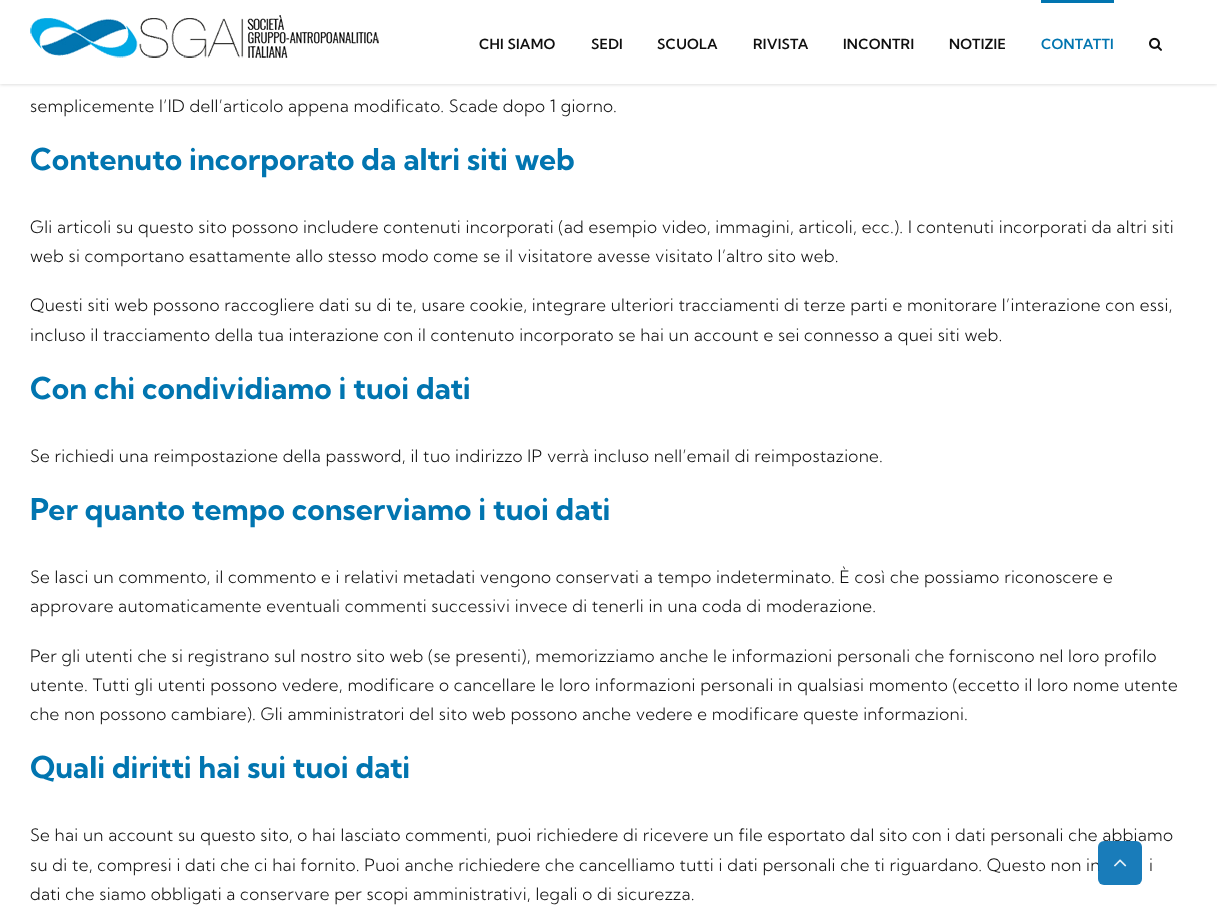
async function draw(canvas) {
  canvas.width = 1217
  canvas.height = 915
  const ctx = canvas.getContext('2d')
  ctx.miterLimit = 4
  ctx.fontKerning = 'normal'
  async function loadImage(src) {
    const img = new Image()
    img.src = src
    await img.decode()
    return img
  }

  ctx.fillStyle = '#fff'
  ctx.fillRect(0, 0, 1217, 915)
  ctx.fillStyle = '#0000001f'
  ctx.filter = 'blur(1.5px)'
  ctx.beginPath()
  ctx.rect(0, 1, 1217, 84)
  ctx.fill()
  ctx.filter = 'none'
  ctx.fillStyle = '#fff'
  ctx.fillRect(0, 0, 1217, 84)
  ctx.drawImage(await loadImage('image0.png'), 30, 15, 349, 43)
  ctx.letterSpacing = '0.25px'
  ctx.font = '600 14px Kumbh Sans'
  ctx.fillStyle = '#0f0f0f'
  ctx.fillText('CHI SIAMO', 479, 49)
  ctx.fillText('SEDI', 591, 49)
  ctx.fillText('SCUOLA', 657, 49)
  ctx.fillText('RIVISTA', 753, 49)
  ctx.fillText('INCONTRI', 843, 49)
  ctx.fillText('NOTIZIE', 949, 49)
  ctx.fillStyle = '#0175b0'
  ctx.fillRect(1041, 0, 73, 3)
  ctx.fillText('CONTATTI', 1041, 49)
  ctx.drawImage(await loadImage('image1.png'), 1149, 37, 13, 14)
  ctx.letterSpacing = '0.26px'
  ctx.font = '300 17px Kumbh Sans'
  ctx.fillStyle = '#0f0f0f'
  ctx.fillText('semplicemente l’ID dell’articolo appena modificato. Scade dopo 1 giorno.', 30, 112)
  ctx.letterSpacing = '0px'
  ctx.font = 'bold 30px Kumbh Sans'
  ctx.fillStyle = '#0175b0'
  ctx.fillText('Contenuto incorporato da altri siti web', 30, 170)
  ctx.letterSpacing = '0.26px'
  ctx.font = '300 17px Kumbh Sans'
  ctx.fillStyle = '#0f0f0f'
  ctx.fillText('Gli articoli su questo sito possono includere contenuti incorporati (ad esempio video, immagini, articoli, ecc.). I contenuti incorporati da altri siti', 30, 233)
  ctx.fillText('web si comportano esattamente allo stesso modo come se il visitatore avesse visitato l’altro sito web.', 30, 262)
  ctx.fillText('Questi siti web possono raccogliere dati su di te, usare cookie, integrare ulteriori tracciamenti di terze parti e monitorare l’interazione con essi,', 30, 311)
  ctx.fillText('incluso il tracciamento della tua interazione con il contenuto incorporato se hai un account e sei connesso a quei siti web.', 30, 341)
  ctx.letterSpacing = '0px'
  ctx.font = 'bold 30px Kumbh Sans'
  ctx.fillStyle = '#0175b0'
  ctx.fillText('Con chi condividiamo i tuoi dati', 30, 399)
  ctx.letterSpacing = '0.26px'
  ctx.font = '300 17px Kumbh Sans'
  ctx.fillStyle = '#0f0f0f'
  ctx.fillText('Se richiedi una reimpostazione della password, il tuo indirizzo IP verrà incluso nell’email di reimpostazione.', 30, 462)
  ctx.letterSpacing = '0px'
  ctx.font = 'bold 30px Kumbh Sans'
  ctx.fillStyle = '#0175b0'
  ctx.fillText('Per quanto tempo conserviamo i tuoi dati', 30, 520)
  ctx.letterSpacing = '0.26px'
  ctx.font = '300 17px Kumbh Sans'
  ctx.fillStyle = '#0f0f0f'
  ctx.fillText('Se lasci un commento, il commento e i relativi metadati vengono conservati a tempo indeterminato. È così che possiamo riconoscere e', 30, 583)
  ctx.fillText('approvare automaticamente eventuali commenti successivi invece di tenerli in una coda di moderazione.', 30, 612)
  ctx.fillText('Per gli utenti che si registrano sul nostro sito web (se presenti), memorizziamo anche le informazioni personali che forniscono nel loro profilo', 30, 662)
  ctx.fillText('utente. Tutti gli utenti possono vedere, modificare o cancellare le loro informazioni personali in qualsiasi momento (eccetto il loro nome utente', 30, 691)
  ctx.fillText('che non possono cambiare). Gli amministratori del sito web possono anche vedere e modificare queste informazioni.', 30, 720)
  ctx.letterSpacing = '0px'
  ctx.font = 'bold 30px Kumbh Sans'
  ctx.fillStyle = '#0175b0'
  ctx.fillText('Quali diritti hai sui tuoi dati', 30, 778)
  ctx.letterSpacing = '0.26px'
  ctx.font = '300 17px Kumbh Sans'
  ctx.fillStyle = '#0f0f0f'
  ctx.fillText('Se hai un account su questo sito, o hai lasciato commenti, puoi richiedere di ricevere un file esportato dal sito con i dati personali che abbiamo', 30, 841)
  ctx.fillText('su di te, compresi i dati che ci hai fornito. Puoi anche richiedere che cancelliamo tutti i dati personali che ti riguardano. Questo non in', 30, 871)
  ctx.fillText('i', 1149, 871)
  ctx.fillText('dati che siamo obbligati a conservare per scopi amministrativi, legali o di sicurezza.', 30, 900)
  ctx.fillStyle = '#006eb3e6'
  ctx.beginPath()
  ctx.roundRect(1098, 841, 44, 44, 6)
  ctx.fill()
  ctx.drawImage(await loadImage('image2.png'), 1114, 859, 13, 8)
}

draw(document.querySelector('canvas'))
